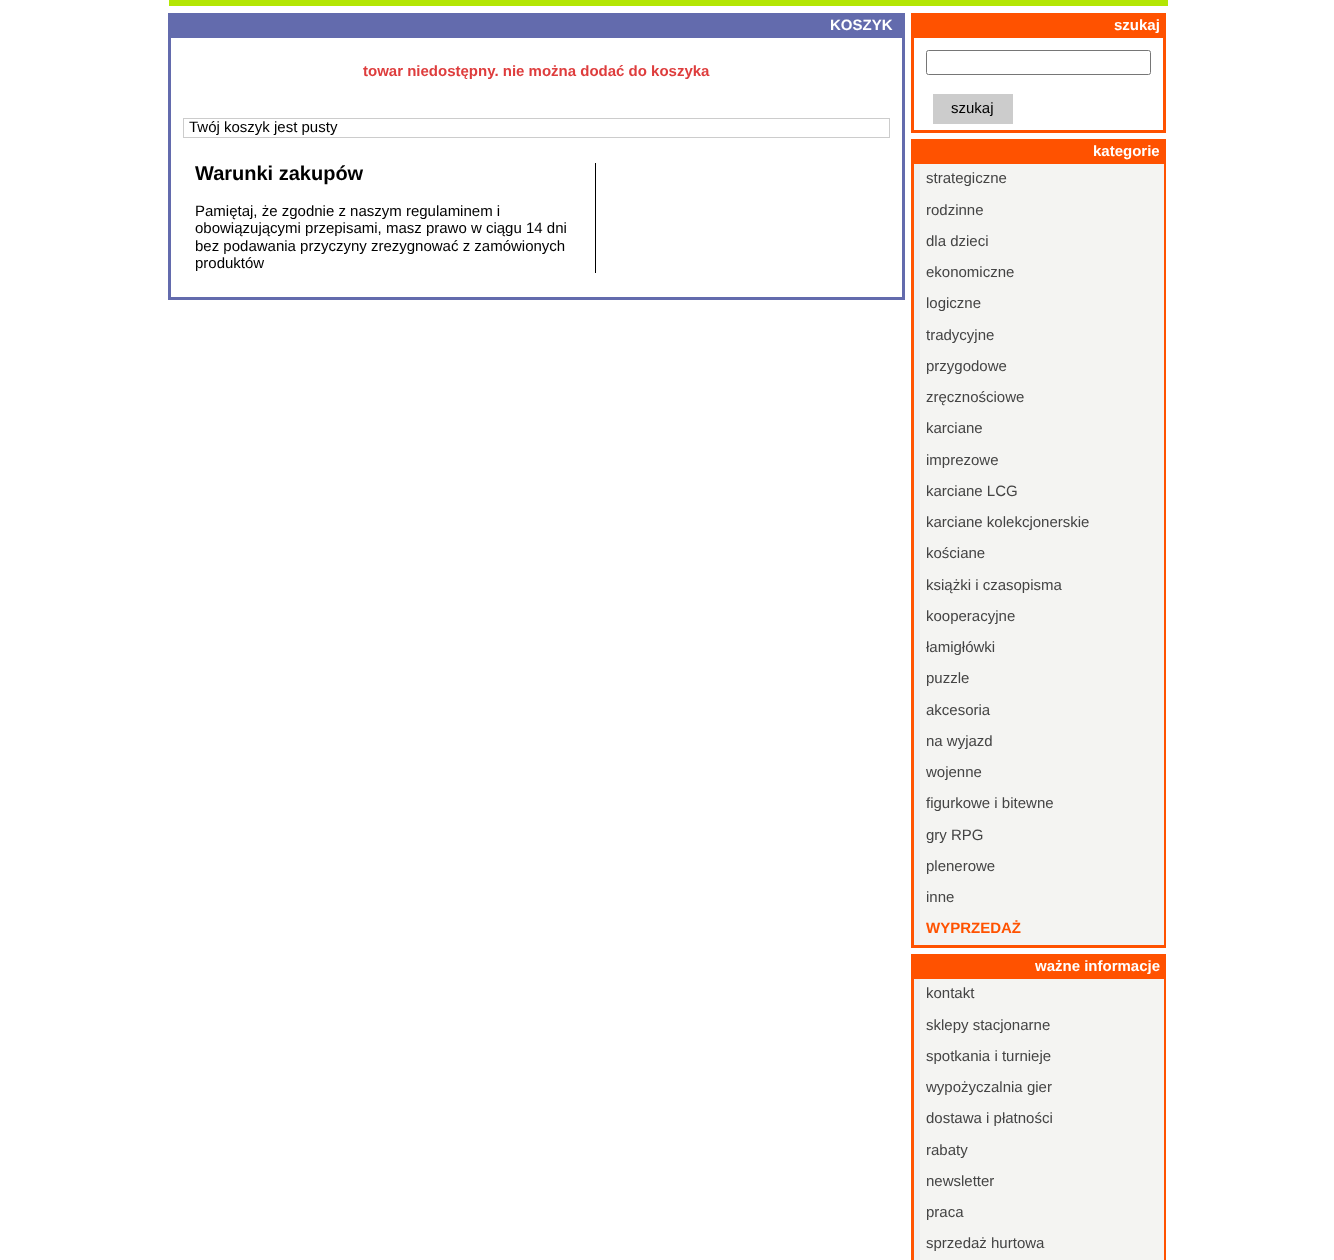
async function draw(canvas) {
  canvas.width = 1334
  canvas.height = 1260
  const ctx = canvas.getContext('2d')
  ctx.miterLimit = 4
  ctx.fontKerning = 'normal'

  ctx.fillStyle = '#fff'
  ctx.fillRect(0, 0, 1334, 1260)
  ctx.fillStyle = '#b3e604'
  ctx.fillRect(169, 0, 999, 6)
  ctx.fillStyle = '#636bad'
  ctx.fillRect(168, 13, 737, 22)
  ctx.font = 'bold 15px Liberation Sans'
  ctx.fillStyle = '#fff'
  ctx.fillText('KOSZYK', 830, 30)
  ctx.strokeStyle = '#636bad'
  ctx.lineWidth = 3
  ctx.strokeRect(169.5, 36.5, 734, 262)
  ctx.fillStyle = '#de3d3d'
  ctx.fillText('towar niedostępny. nie można dodać do koszyka', 363, 76)
  ctx.strokeStyle = '#ccc'
  ctx.lineWidth = 1
  ctx.strokeRect(183.5, 118.5, 706, 19)
  ctx.font = '15px Liberation Sans'
  ctx.fillStyle = '#000'
  ctx.fillText('Twój koszyk jest pusty', 189, 132)
  ctx.fillRect(595, 163, 1, 110)
  ctx.font = 'bold 20px Liberation Sans'
  ctx.fillText('Warunki zakupów', 195, 180)
  ctx.font = '15px Liberation Sans'
  ctx.fillText('Pamiętaj, że zgodnie z naszym regulaminem i', 195, 216)
  ctx.fillText('obowiązującymi przepisami, masz prawo w ciągu 14 dni', 195, 233)
  ctx.fillText('bez podawania przyczyny zrezygnować z zamówionych', 195, 251)
  ctx.fillText('produktów', 195, 268)
  ctx.fillStyle = '#ff5200'
  ctx.fillRect(911, 13, 255, 22)
  ctx.font = 'bold 15px Liberation Sans'
  ctx.fillStyle = '#fff'
  ctx.fillText('szukaj', 1114, 30)
  ctx.strokeStyle = '#ff5200'
  ctx.lineWidth = 3
  ctx.strokeRect(912.5, 36.5, 252, 95)
  ctx.beginPath()
  ctx.roundRect(926.5, 50.5, 224, 24, 2)
  ctx.strokeStyle = '#767676'
  ctx.lineWidth = 1
  ctx.stroke()
  ctx.fillStyle = '#ccc'
  ctx.fillRect(933, 94, 80, 30)
  ctx.font = '15px Liberation Sans'
  ctx.fillStyle = '#000'
  ctx.fillText('szukaj', 951, 113)
  ctx.fillStyle = '#ff5200'
  ctx.fillRect(911, 139, 255, 22)
  ctx.font = 'bold 15px Liberation Sans'
  ctx.fillStyle = '#fff'
  ctx.fillText('kategorie', 1093, 156)
  ctx.strokeStyle = '#ff5200'
  ctx.lineWidth = 3
  ctx.strokeRect(912.5, 162.5, 252, 784)
  ctx.fillStyle = '#f4f4f2'
  ctx.fillRect(920, 164, 244, 781)
  ctx.fillStyle = '#eee'
  ctx.fillRect(914, 164, 6, 781)
  ctx.font = '15px Liberation Sans'
  ctx.fillStyle = '#444'
  ctx.fillText('strategiczne', 926, 183)
  ctx.fillText('rodzinne', 926, 215)
  ctx.fillText('dla dzieci', 926, 246)
  ctx.fillText('ekonomiczne', 926, 277)
  ctx.fillText('logiczne', 926, 308)
  ctx.fillText('tradycyjne', 926, 340)
  ctx.fillText('przygodowe', 926, 371)
  ctx.fillText('zręcznościowe', 926, 402)
  ctx.fillText('karciane', 926, 433)
  ctx.fillText('imprezowe', 926, 465)
  ctx.fillText('karciane LCG', 926, 496)
  ctx.fillText('karciane kolekcjonerskie', 926, 527)
  ctx.fillText('kościane', 926, 558)
  ctx.fillText('książki i czasopisma', 926, 590)
  ctx.fillText('kooperacyjne', 926, 621)
  ctx.fillText('łamigłówki', 926, 652)
  ctx.fillText('puzzle', 926, 683)
  ctx.fillText('akcesoria', 926, 715)
  ctx.fillText('na wyjazd', 926, 746)
  ctx.fillText('wojenne', 926, 777)
  ctx.fillText('figurkowe i bitewne', 926, 808)
  ctx.fillText('gry RPG', 926, 840)
  ctx.fillText('plenerowe', 926, 871)
  ctx.fillText('inne', 926, 902)
  ctx.font = 'bold 15px Liberation Sans'
  ctx.fillStyle = '#ff5200'
  ctx.fillText('WYPRZEDAŻ', 926, 933)
  ctx.fillRect(911, 954, 255, 22)
  ctx.fillStyle = '#fff'
  ctx.fillText('ważne informacje', 1035, 971)
  ctx.strokeRect(912.5, 977.5, 252, 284)
  ctx.fillStyle = '#f4f4f2'
  ctx.fillRect(920, 979, 244, 281)
  ctx.fillStyle = '#eee'
  ctx.fillRect(914, 979, 6, 281)
  ctx.font = '15px Liberation Sans'
  ctx.fillStyle = '#444'
  ctx.fillText('kontakt', 926, 998)
  ctx.fillText('sklepy stacjonarne', 926, 1030)
  ctx.fillText('spotkania i turnieje', 926, 1061)
  ctx.fillText('wypożyczalnia gier', 926, 1092)
  ctx.fillText('dostawa i płatności', 926, 1123)
  ctx.fillText('rabaty', 926, 1155)
  ctx.fillText('newsletter', 926, 1186)
  ctx.fillText('praca', 926, 1217)
  ctx.fillText('sprzedaż hurtowa', 926, 1248)
}

draw(document.querySelector('canvas'))
